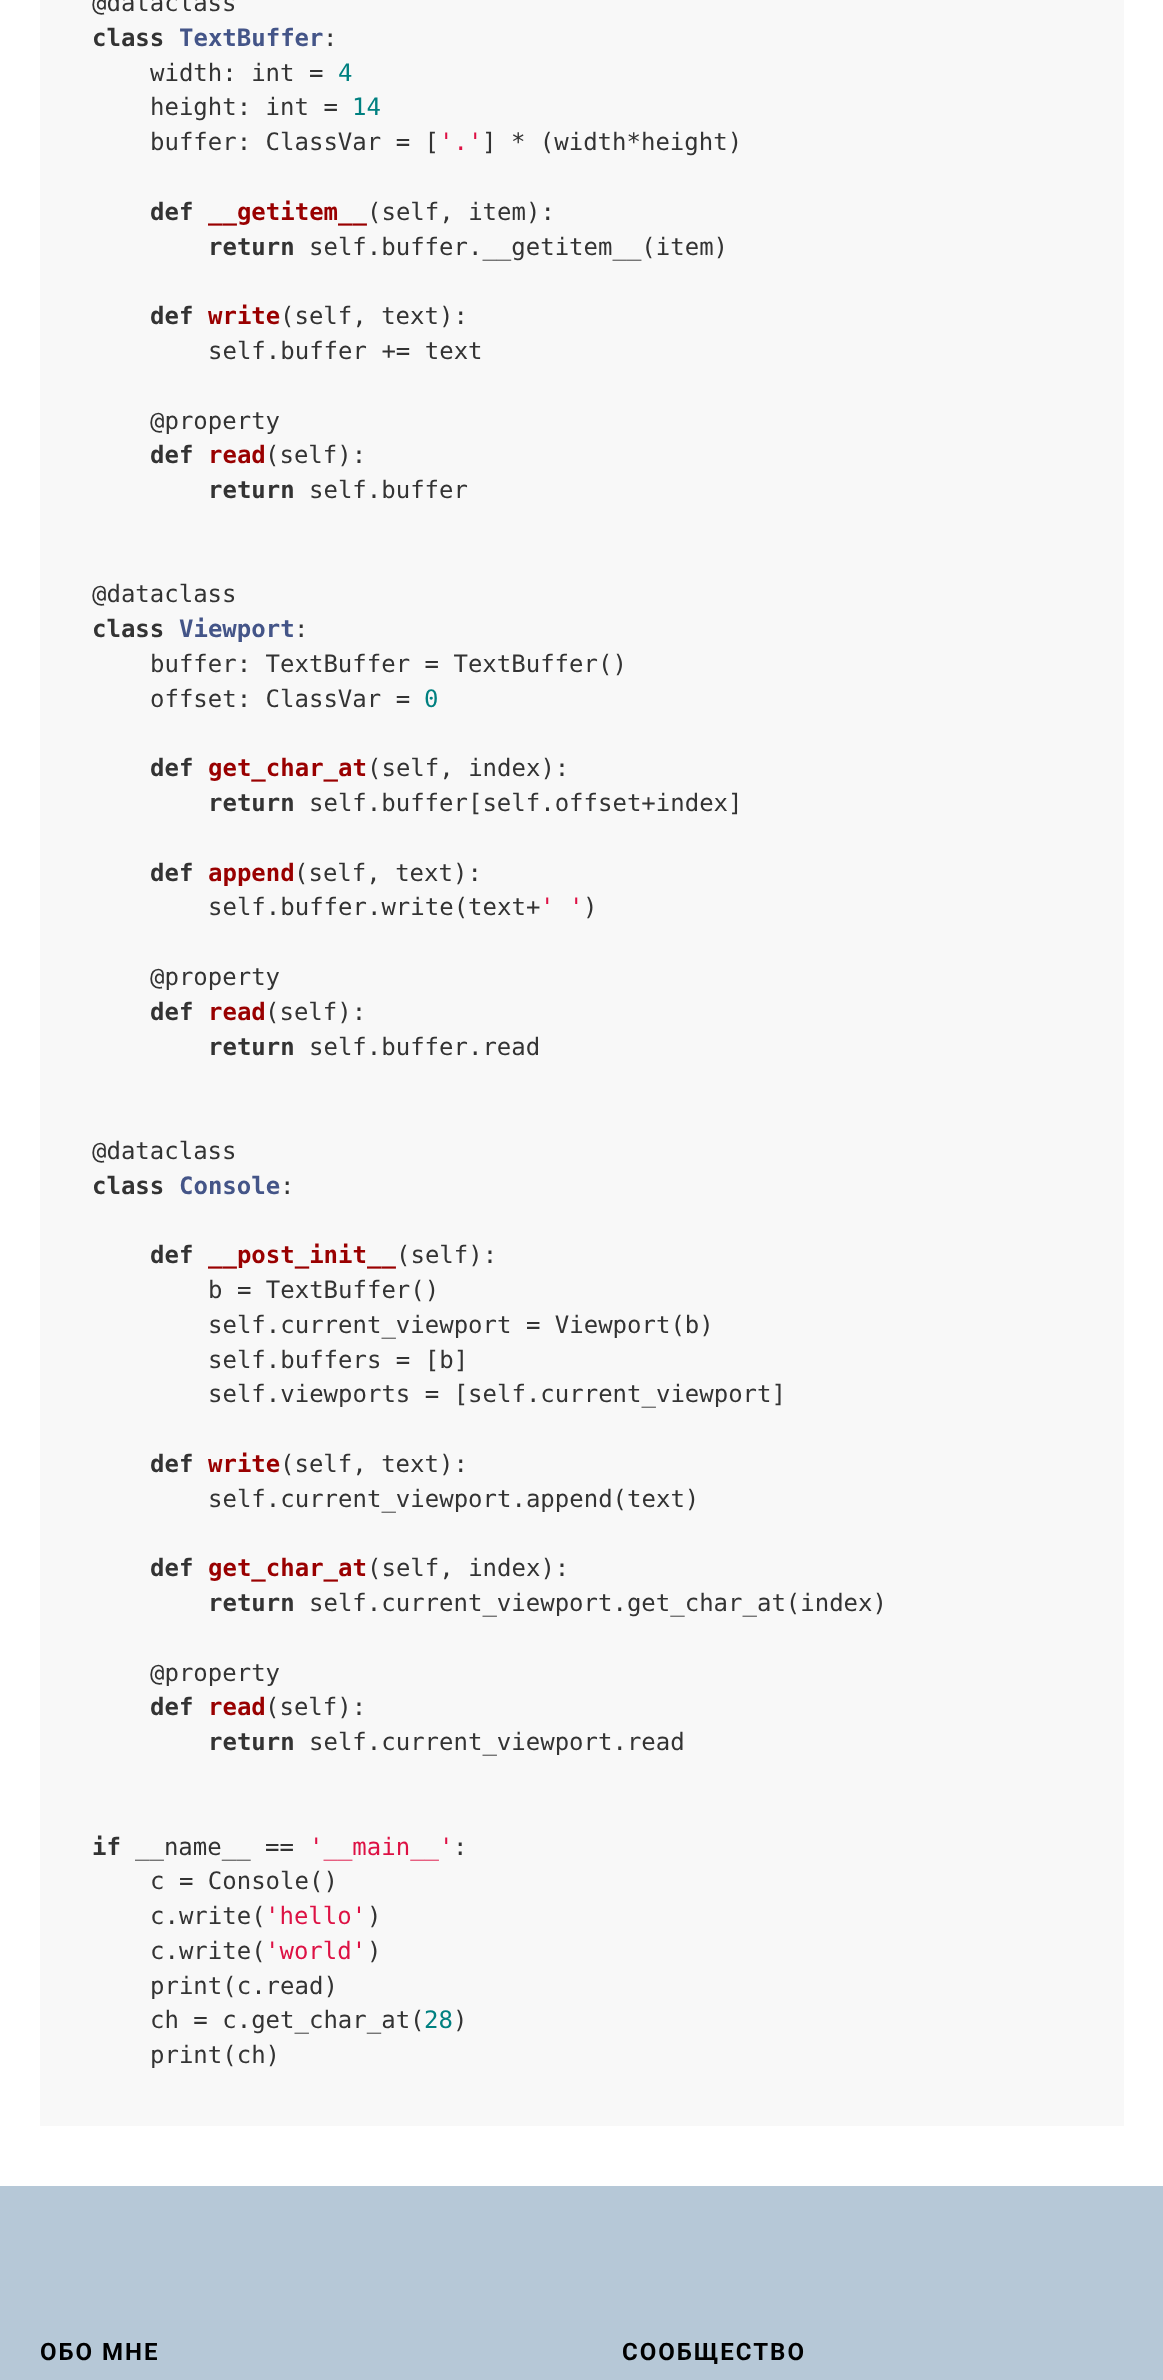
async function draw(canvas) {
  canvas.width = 1163
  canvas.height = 2380
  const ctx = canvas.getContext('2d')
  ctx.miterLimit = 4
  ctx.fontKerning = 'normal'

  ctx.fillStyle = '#fff'
  ctx.fillRect(0, 0, 1163, 2380)
  ctx.fillStyle = '#f8f8f8'
  ctx.fillRect(40, 0, 1084, 2126)
  ctx.font = '24px DejaVu Sans Mono'
  ctx.fillStyle = '#333'
  ctx.fillText('@dataclass', 92, 11)
  ctx.font = 'bold 24px DejaVu Sans Mono'
  ctx.fillText('class', 92, 46)
  ctx.fillStyle = '#458'
  ctx.fillText('TextBuffer', 179, 46)
  ctx.font = '24px DejaVu Sans Mono'
  ctx.fillStyle = '#333'
  ctx.fillText(':', 323, 46)
  ctx.fillText('width: int =', 150, 81)
  ctx.fillStyle = '#008080'
  ctx.fillText('4', 338, 81)
  ctx.fillStyle = '#333'
  ctx.fillText('height: int =', 150, 115)
  ctx.fillStyle = '#008080'
  ctx.fillText('14', 352, 115)
  ctx.fillStyle = '#333'
  ctx.fillText('buffer: ClassVar = [', 150, 150)
  ctx.fillStyle = '#d14'
  ctx.fillText('\'.\'', 439, 150)
  ctx.fillStyle = '#333'
  ctx.fillText('] * (width*height)', 482, 150)
  ctx.font = 'bold 24px DejaVu Sans Mono'
  ctx.fillText('def', 150, 220)
  ctx.fillStyle = '#900'
  ctx.fillText('__getitem__', 208, 220)
  ctx.font = '24px DejaVu Sans Mono'
  ctx.fillStyle = '#333'
  ctx.fillText('(self, item):', 367, 220)
  ctx.font = 'bold 24px DejaVu Sans Mono'
  ctx.fillText('return', 208, 255)
  ctx.font = '24px DejaVu Sans Mono'
  ctx.fillText('self.buffer.__getitem__(item)', 309, 255)
  ctx.font = 'bold 24px DejaVu Sans Mono'
  ctx.fillText('def', 150, 324)
  ctx.fillStyle = '#900'
  ctx.fillText('write', 208, 324)
  ctx.font = '24px DejaVu Sans Mono'
  ctx.fillStyle = '#333'
  ctx.fillText('(self, text):', 280, 324)
  ctx.fillText('self.buffer += text', 208, 359)
  ctx.fillText('@property', 150, 429)
  ctx.font = 'bold 24px DejaVu Sans Mono'
  ctx.fillText('def', 150, 463)
  ctx.fillStyle = '#900'
  ctx.fillText('read', 208, 463)
  ctx.font = '24px DejaVu Sans Mono'
  ctx.fillStyle = '#333'
  ctx.fillText('(self):', 265, 463)
  ctx.font = 'bold 24px DejaVu Sans Mono'
  ctx.fillText('return', 208, 498)
  ctx.font = '24px DejaVu Sans Mono'
  ctx.fillText('self.buffer', 309, 498)
  ctx.fillText('@dataclass', 92, 602)
  ctx.font = 'bold 24px DejaVu Sans Mono'
  ctx.fillText('class', 92, 637)
  ctx.fillStyle = '#458'
  ctx.fillText('Viewport', 179, 637)
  ctx.font = '24px DejaVu Sans Mono'
  ctx.fillStyle = '#333'
  ctx.fillText(':', 294, 637)
  ctx.fillText('buffer: TextBuffer = TextBuffer()', 150, 672)
  ctx.fillText('offset: ClassVar =', 150, 707)
  ctx.fillStyle = '#008080'
  ctx.fillText('0', 424, 707)
  ctx.font = 'bold 24px DejaVu Sans Mono'
  ctx.fillStyle = '#333'
  ctx.fillText('def', 150, 776)
  ctx.fillStyle = '#900'
  ctx.fillText('get_char_at', 208, 776)
  ctx.font = '24px DejaVu Sans Mono'
  ctx.fillStyle = '#333'
  ctx.fillText('(self, index):', 367, 776)
  ctx.font = 'bold 24px DejaVu Sans Mono'
  ctx.fillText('return', 208, 811)
  ctx.font = '24px DejaVu Sans Mono'
  ctx.fillText('self.buffer[self.offset+index]', 309, 811)
  ctx.font = 'bold 24px DejaVu Sans Mono'
  ctx.fillText('def', 150, 881)
  ctx.fillStyle = '#900'
  ctx.fillText('append', 208, 881)
  ctx.font = '24px DejaVu Sans Mono'
  ctx.fillStyle = '#333'
  ctx.fillText('(self, text):', 294, 881)
  ctx.fillText('self.buffer.write(text+', 208, 915)
  ctx.fillStyle = '#d14'
  ctx.fillText('\' \'', 540, 915)
  ctx.fillStyle = '#333'
  ctx.fillText(')', 583, 915)
  ctx.fillText('@property', 150, 985)
  ctx.font = 'bold 24px DejaVu Sans Mono'
  ctx.fillText('def', 150, 1020)
  ctx.fillStyle = '#900'
  ctx.fillText('read', 208, 1020)
  ctx.font = '24px DejaVu Sans Mono'
  ctx.fillStyle = '#333'
  ctx.fillText('(self):', 265, 1020)
  ctx.font = 'bold 24px DejaVu Sans Mono'
  ctx.fillText('return', 208, 1055)
  ctx.font = '24px DejaVu Sans Mono'
  ctx.fillText('self.buffer.read', 309, 1055)
  ctx.fillText('@dataclass', 92, 1159)
  ctx.font = 'bold 24px DejaVu Sans Mono'
  ctx.fillText('class', 92, 1194)
  ctx.fillStyle = '#458'
  ctx.fillText('Console', 179, 1194)
  ctx.font = '24px DejaVu Sans Mono'
  ctx.fillStyle = '#333'
  ctx.fillText(':', 280, 1194)
  ctx.font = 'bold 24px DejaVu Sans Mono'
  ctx.fillText('def', 150, 1263)
  ctx.fillStyle = '#900'
  ctx.fillText('__post_init__', 208, 1263)
  ctx.font = '24px DejaVu Sans Mono'
  ctx.fillStyle = '#333'
  ctx.fillText('(self):', 396, 1263)
  ctx.fillText('b = TextBuffer()', 208, 1298)
  ctx.fillText('self.current_viewport = Viewport(b)', 208, 1333)
  ctx.fillText('self.buffers = [b]', 208, 1368)
  ctx.fillText('self.viewports = [self.current_viewport]', 208, 1402)
  ctx.font = 'bold 24px DejaVu Sans Mono'
  ctx.fillText('def', 150, 1472)
  ctx.fillStyle = '#900'
  ctx.fillText('write', 208, 1472)
  ctx.font = '24px DejaVu Sans Mono'
  ctx.fillStyle = '#333'
  ctx.fillText('(self, text):', 280, 1472)
  ctx.fillText('self.current_viewport.append(text)', 208, 1507)
  ctx.font = 'bold 24px DejaVu Sans Mono'
  ctx.fillText('def', 150, 1576)
  ctx.fillStyle = '#900'
  ctx.fillText('get_char_at', 208, 1576)
  ctx.font = '24px DejaVu Sans Mono'
  ctx.fillStyle = '#333'
  ctx.fillText('(self, index):', 367, 1576)
  ctx.font = 'bold 24px DejaVu Sans Mono'
  ctx.fillText('return', 208, 1611)
  ctx.font = '24px DejaVu Sans Mono'
  ctx.fillText('self.current_viewport.get_char_at(index)', 309, 1611)
  ctx.fillText('@property', 150, 1681)
  ctx.font = 'bold 24px DejaVu Sans Mono'
  ctx.fillText('def', 150, 1715)
  ctx.fillStyle = '#900'
  ctx.fillText('read', 208, 1715)
  ctx.font = '24px DejaVu Sans Mono'
  ctx.fillStyle = '#333'
  ctx.fillText('(self):', 265, 1715)
  ctx.font = 'bold 24px DejaVu Sans Mono'
  ctx.fillText('return', 208, 1750)
  ctx.font = '24px DejaVu Sans Mono'
  ctx.fillText('self.current_viewport.read', 309, 1750)
  ctx.font = 'bold 24px DejaVu Sans Mono'
  ctx.fillText('if', 92, 1855)
  ctx.font = '24px DejaVu Sans Mono'
  ctx.fillText('__name__ ==', 135, 1855)
  ctx.fillStyle = '#d14'
  ctx.fillText('\'__main__\'', 309, 1855)
  ctx.fillStyle = '#333'
  ctx.fillText(':', 453, 1855)
  ctx.fillText('c = Console()', 150, 1889)
  ctx.fillText('c.write(', 150, 1924)
  ctx.fillStyle = '#d14'
  ctx.fillText('\'hello\'', 265, 1924)
  ctx.fillStyle = '#333'
  ctx.fillText(')', 367, 1924)
  ctx.fillText('c.write(', 150, 1959)
  ctx.fillStyle = '#d14'
  ctx.fillText('\'world\'', 265, 1959)
  ctx.fillStyle = '#333'
  ctx.fillText(')', 367, 1959)
  ctx.fillText('print(c.read)', 150, 1994)
  ctx.fillText('ch = c.get_char_at(', 150, 2028)
  ctx.fillStyle = '#008080'
  ctx.fillText('28', 424, 2028)
  ctx.fillStyle = '#333'
  ctx.fillText(')', 453, 2028)
  ctx.fillText('print(ch)', 150, 2063)
  ctx.fillStyle = '#b6c8d7'
  ctx.fillRect(0, 2186, 1163, 194)
  ctx.letterSpacing = '2px'
  ctx.font = 'bold 24px Roboto'
  ctx.fillStyle = '#000'
  ctx.fillText('ОБО МНЕ', 40, 2360)
  ctx.fillText('СООБЩЕСТВО', 622, 2360)
}

draw(document.querySelector('canvas'))
